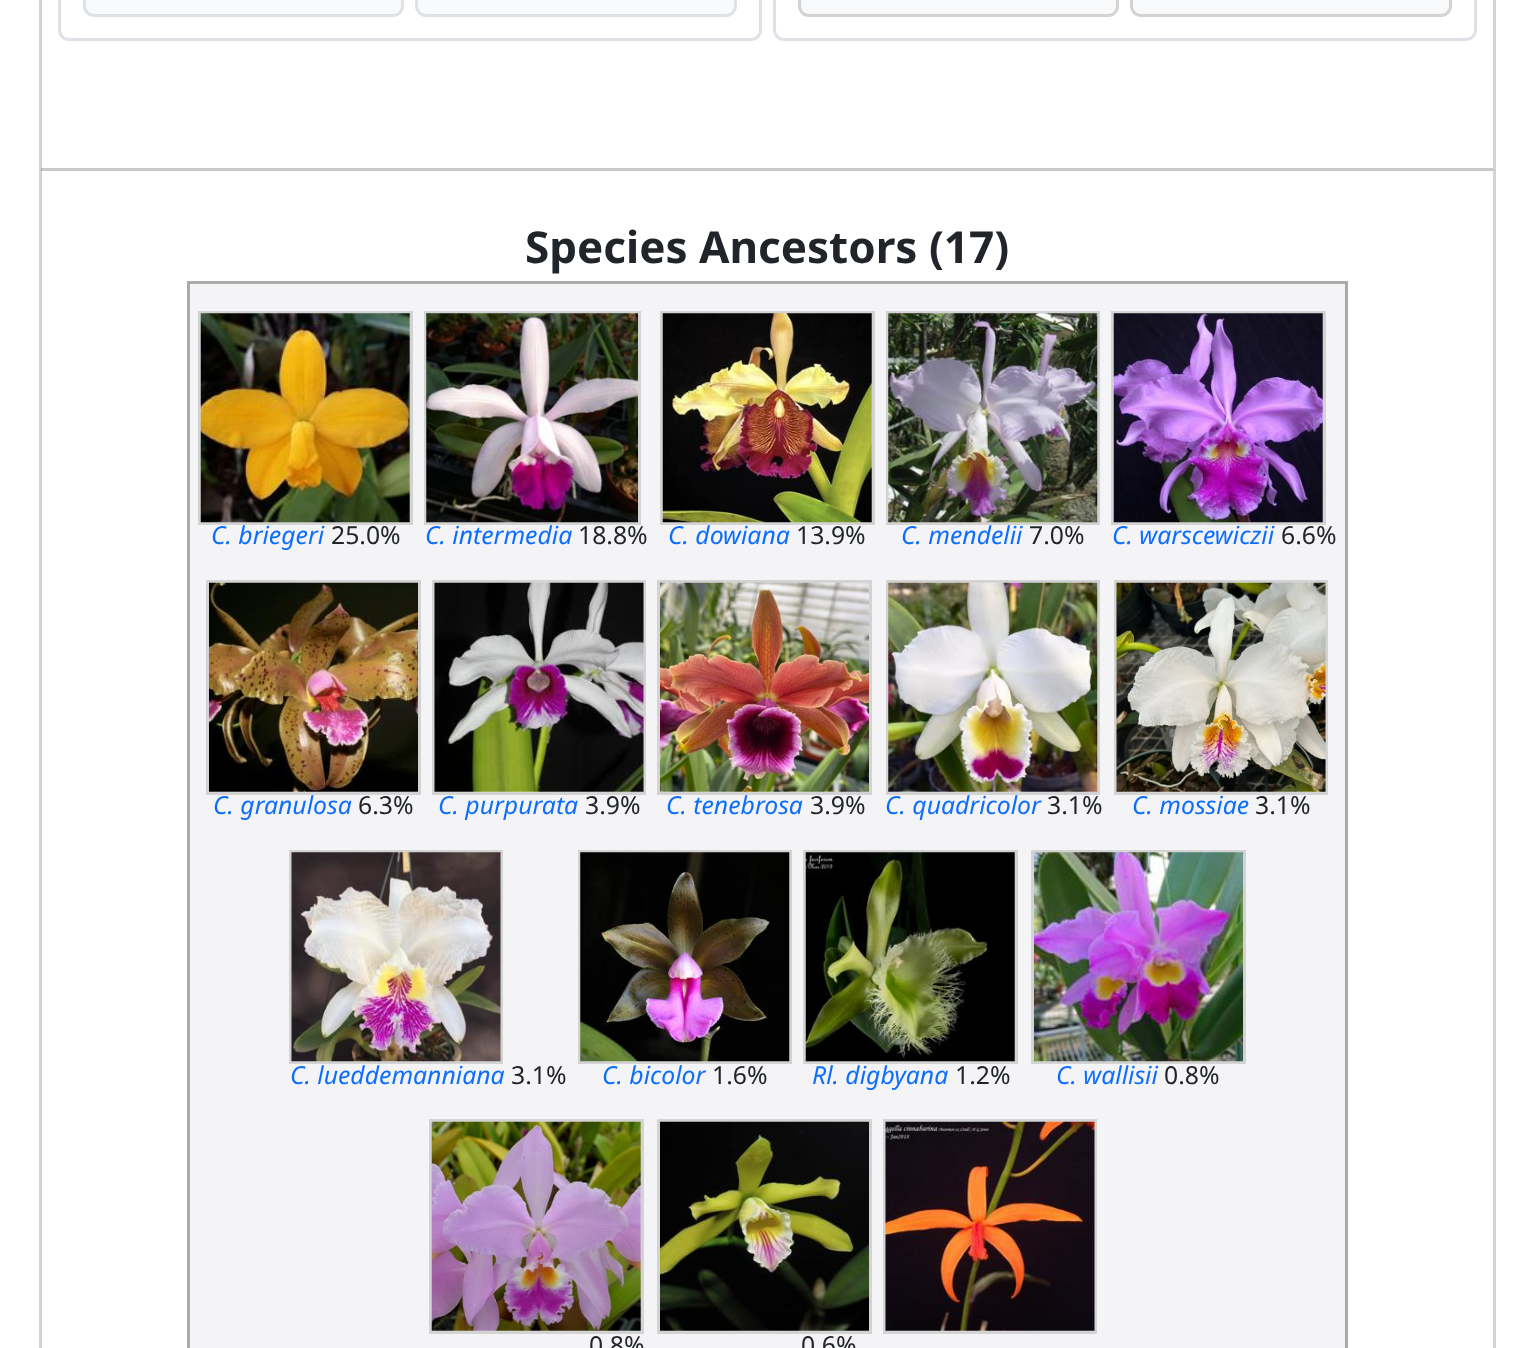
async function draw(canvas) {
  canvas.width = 1534
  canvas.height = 1348
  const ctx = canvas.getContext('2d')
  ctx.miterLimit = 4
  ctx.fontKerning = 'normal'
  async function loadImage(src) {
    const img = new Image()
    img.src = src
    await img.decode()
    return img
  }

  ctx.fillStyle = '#fff'
  ctx.fillRect(0, 0, 1534, 1348)
  ctx.fillStyle = '#c8c9ca'
  ctx.fillRect(41, 168, 1452, 3)
  ctx.fillStyle = '#d3d3d3'
  ctx.fillRect(1493, 0, 3, 1348)
  ctx.fillRect(39, 0, 3, 1348)
  ctx.fillStyle = '#a7a8a9'
  ctx.fillRect(41, 168, 1, 3)
  ctx.beginPath()
  ctx.roundRect(59.5, -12.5, 701, 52, 9.5)
  ctx.strokeStyle = '#dee2e6'
  ctx.lineWidth = 3
  ctx.stroke()
  ctx.fillStyle = '#f8f9fa'
  ctx.beginPath()
  ctx.roundRect(84.5, -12.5, 318, 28, 9.5)
  ctx.fill()
  ctx.stroke()
  ctx.beginPath()
  ctx.roundRect(416.5, -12.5, 319, 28, 9.5)
  ctx.fill()
  ctx.stroke()
  ctx.beginPath()
  ctx.roundRect(774.5, -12.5, 701, 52, 9.5)
  ctx.stroke()
  ctx.beginPath()
  ctx.roundRect(799.5, -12.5, 318, 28, 9.5)
  ctx.fill()
  ctx.strokeStyle = '#d3d3d3'
  ctx.stroke()
  ctx.beginPath()
  ctx.roundRect(1131.5, -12.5, 319, 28, 9.5)
  ctx.fill()
  ctx.stroke()
  ctx.font = 'bold 44px Noto Sans'
  ctx.fillStyle = '#212529'
  ctx.fillText('Species Ancestors (17)', 525, 263)
  ctx.fillStyle = '#f4f4f6'
  ctx.beginPath()
  ctx.rect(188.5, 282.5, 1158, 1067)
  ctx.fill()
  ctx.strokeStyle = '#aaa'
  ctx.stroke()
  ctx.strokeStyle = '#d3d3d3'
  ctx.strokeRect(199.5, 312.5, 212, 211)
  ctx.drawImage(await loadImage('image0.png'), 200, 313, 210, 210)
  ctx.font = 'italic 24.75px Noto Sans'
  ctx.fillStyle = '#0d6efd'
  ctx.fillText('C. briegeri', 211, 544)
  ctx.font = '24.75px Noto Sans'
  ctx.fillStyle = '#212529'
  ctx.fillText('25.0%', 331, 544)
  ctx.strokeRect(425.5, 312.5, 214, 211)
  ctx.drawImage(await loadImage('image1.png'), 426, 313, 212, 210)
  ctx.font = 'italic 24.75px Noto Sans'
  ctx.fillStyle = '#0d6efd'
  ctx.fillText('C. intermedia', 425, 544)
  ctx.font = '24.75px Noto Sans'
  ctx.fillStyle = '#212529'
  ctx.fillText('18.8%', 578, 544)
  ctx.strokeRect(661.5, 312.5, 212, 211)
  ctx.drawImage(await loadImage('image2.png'), 662, 313, 210, 210)
  ctx.font = 'italic 24.75px Noto Sans'
  ctx.fillStyle = '#0d6efd'
  ctx.fillText('C. dowiana', 668, 544)
  ctx.font = '24.75px Noto Sans'
  ctx.fillStyle = '#212529'
  ctx.fillText('13.9%', 796, 544)
  ctx.strokeRect(887.5, 312.5, 211, 211)
  ctx.drawImage(await loadImage('image3.png'), 888, 313, 210, 210)
  ctx.font = 'italic 24.75px Noto Sans'
  ctx.fillStyle = '#0d6efd'
  ctx.fillText('C. mendelii', 901, 544)
  ctx.font = '24.75px Noto Sans'
  ctx.fillStyle = '#212529'
  ctx.fillText('7.0%', 1029, 544)
  ctx.strokeRect(1112.5, 312.5, 212, 211)
  ctx.drawImage(await loadImage('image4.png'), 1113, 313, 210, 210)
  ctx.font = 'italic 24.75px Noto Sans'
  ctx.fillStyle = '#0d6efd'
  ctx.fillText('C. warscewiczii', 1112, 544)
  ctx.font = '24.75px Noto Sans'
  ctx.fillStyle = '#212529'
  ctx.fillText('6.6%', 1281, 544)
  ctx.strokeRect(207.5, 581.5, 212, 212)
  ctx.drawImage(await loadImage('image5.png'), 209, 582, 209, 210)
  ctx.font = 'italic 24.75px Noto Sans'
  ctx.fillStyle = '#0d6efd'
  ctx.fillText('C. granulosa', 213, 814)
  ctx.font = '24.75px Noto Sans'
  ctx.fillStyle = '#212529'
  ctx.fillText('6.3%', 358, 814)
  ctx.strokeRect(433.5, 581.5, 211, 212)
  ctx.drawImage(await loadImage('image6.png'), 434, 582, 210, 210)
  ctx.font = 'italic 24.75px Noto Sans'
  ctx.fillStyle = '#0d6efd'
  ctx.fillText('C. purpurata', 438, 814)
  ctx.font = '24.75px Noto Sans'
  ctx.fillStyle = '#212529'
  ctx.fillText('3.9%', 585, 814)
  ctx.strokeRect(658.5, 581.5, 212, 212)
  ctx.drawImage(await loadImage('image7.png'), 660, 582, 209, 210)
  ctx.font = 'italic 24.75px Noto Sans'
  ctx.fillStyle = '#0d6efd'
  ctx.fillText('C. tenebrosa', 666, 814)
  ctx.font = '24.75px Noto Sans'
  ctx.fillStyle = '#212529'
  ctx.fillText('3.9%', 810, 814)
  ctx.strokeRect(887.5, 581.5, 211, 212)
  ctx.drawImage(await loadImage('image8.png'), 888, 582, 210, 210)
  ctx.font = 'italic 24.75px Noto Sans'
  ctx.fillStyle = '#0d6efd'
  ctx.fillText('C. quadricolor', 885, 814)
  ctx.font = '24.75px Noto Sans'
  ctx.fillStyle = '#212529'
  ctx.fillText('3.1%', 1047, 814)
  ctx.strokeRect(1115.5, 581.5, 211, 212)
  ctx.drawImage(await loadImage('image9.png'), 1116, 582, 210, 210)
  ctx.font = 'italic 24.75px Noto Sans'
  ctx.fillStyle = '#0d6efd'
  ctx.fillText('C. mossiae', 1132, 814)
  ctx.font = '24.75px Noto Sans'
  ctx.fillStyle = '#212529'
  ctx.fillText('3.1%', 1255, 814)
  ctx.strokeRect(290.5, 851.5, 211, 211)
  ctx.drawImage(await loadImage('image10.png'), 291, 852, 210, 210)
  ctx.font = 'italic 24.75px Noto Sans'
  ctx.fillStyle = '#0d6efd'
  ctx.fillText('C. lueddemanniana', 290, 1084)
  ctx.font = '24.75px Noto Sans'
  ctx.fillStyle = '#212529'
  ctx.fillText('3.1%', 511, 1084)
  ctx.strokeRect(579.5, 851.5, 211, 211)
  ctx.drawImage(await loadImage('image11.png'), 580, 852, 210, 210)
  ctx.font = 'italic 24.75px Noto Sans'
  ctx.fillStyle = '#0d6efd'
  ctx.fillText('C. bicolor', 602, 1084)
  ctx.font = '24.75px Noto Sans'
  ctx.fillStyle = '#212529'
  ctx.fillText('1.6%', 712, 1084)
  ctx.strokeRect(804.5, 851.5, 212, 211)
  ctx.drawImage(await loadImage('image12.png'), 805, 852, 210, 210)
  ctx.font = 'italic 24.75px Noto Sans'
  ctx.fillStyle = '#0d6efd'
  ctx.fillText('Rl. digbyana', 812, 1084)
  ctx.font = '24.75px Noto Sans'
  ctx.fillStyle = '#212529'
  ctx.fillText('1.2%', 955, 1084)
  ctx.strokeRect(1032.5, 851.5, 212, 211)
  ctx.drawImage(await loadImage('image13.png'), 1034, 852, 209, 210)
  ctx.font = 'italic 24.75px Noto Sans'
  ctx.fillStyle = '#0d6efd'
  ctx.fillText('C. wallisii', 1056, 1084)
  ctx.font = '24.75px Noto Sans'
  ctx.fillStyle = '#212529'
  ctx.fillText('0.8%', 1164, 1084)
  ctx.strokeRect(884.5, 1120.5, 211, 212)
  ctx.drawImage(await loadImage('image14.png'), 885, 1121, 210, 210)
  ctx.strokeRect(430.5, 1120.5, 212, 212)
  ctx.drawImage(await loadImage('image15.png'), 431, 1121, 210, 210)
  ctx.fillText('0.8%', 589, 1354)
  ctx.strokeRect(658.5, 1120.5, 212, 212)
  ctx.drawImage(await loadImage('image16.png'), 660, 1121, 209, 210)
  ctx.fillText('0.6%', 801, 1354)
}

draw(document.querySelector('canvas'))
